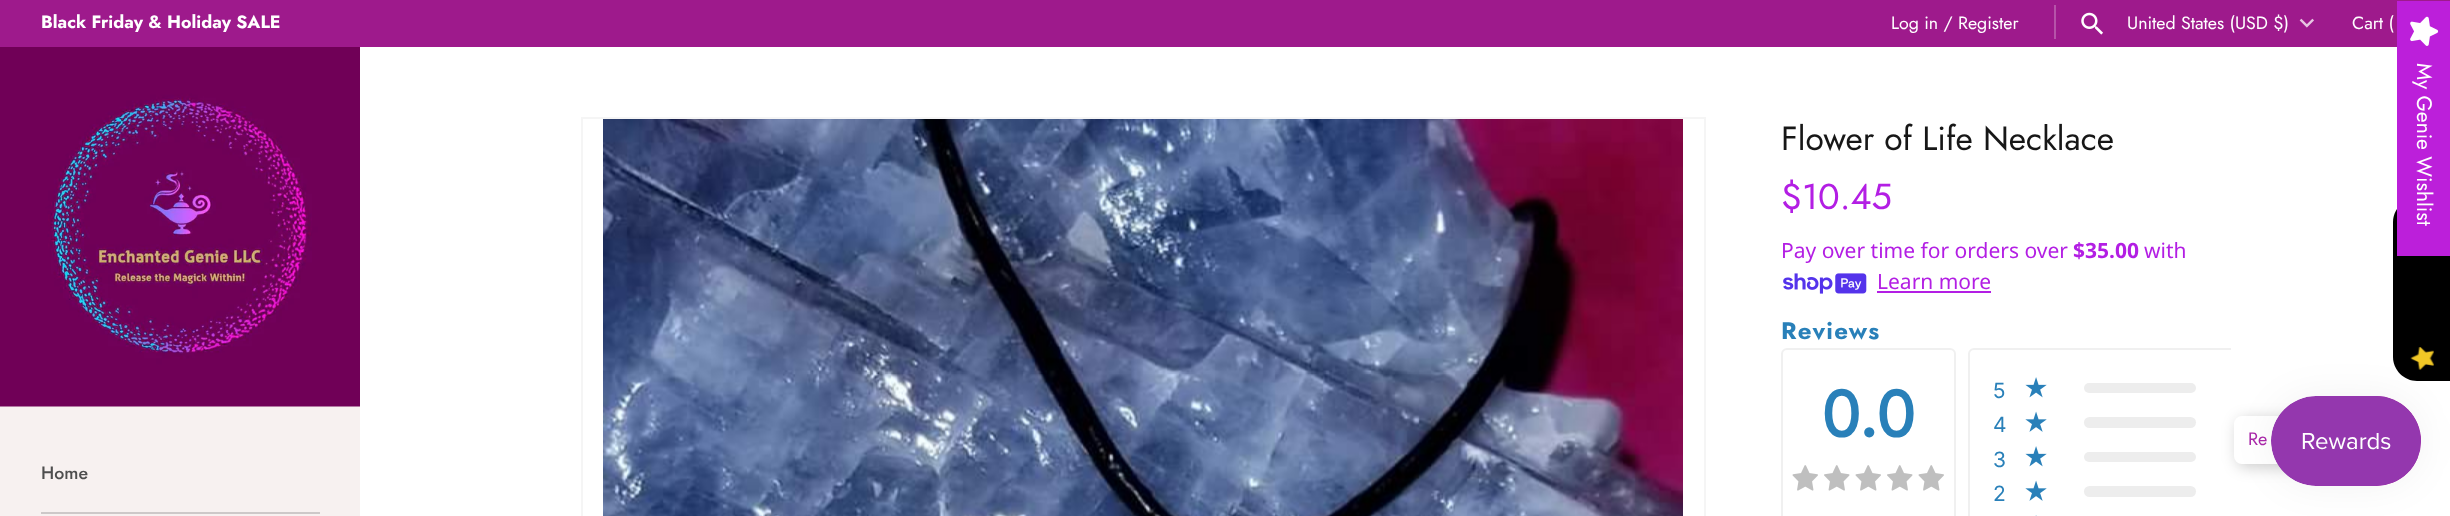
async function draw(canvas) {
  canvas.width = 2450
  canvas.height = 516
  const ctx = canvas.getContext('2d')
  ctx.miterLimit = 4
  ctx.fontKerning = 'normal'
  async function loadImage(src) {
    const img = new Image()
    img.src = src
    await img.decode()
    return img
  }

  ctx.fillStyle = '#fff'
  ctx.fillRect(0, 0, 2450, 516)
  ctx.fillStyle = '#9e1a8c'
  ctx.fillRect(0, 0, 2450, 47)
  ctx.font = 'bold 17.8px Jost'
  ctx.fillStyle = '#fff'
  ctx.fillText('Black Friday & Holiday SALE', 41, 28)
  ctx.font = '17.8px Jost'
  ctx.fillText('Log in / Register', 1891, 29)
  ctx.fillStyle = '#b653a9'
  ctx.fillRect(2054, 5, 2, 34)
  ctx.drawImage(await loadImage('image0.png'), 2081, 12, 22, 23)
  ctx.fillStyle = '#fff'
  ctx.fillText('United States (USD $)', 2127, 29)
  ctx.drawImage(await loadImage('image1.png'), 2299, 18, 15, 10)
  ctx.fillText('Cart (', 2352, 29)
  ctx.fillStyle = '#f7f1f0'
  ctx.fillRect(0, 406, 360, 110)
  ctx.drawImage(await loadImage('image2.png'), 0, 47, 360, 360)
  ctx.fillStyle = '#cdc8c8'
  ctx.fillRect(41, 512, 279, 2)
  ctx.font = '500 17.8px Jost'
  ctx.fillStyle = '#4e4e4e'
  ctx.fillText('Home', 41, 479)
  ctx.strokeStyle = '#f5f5f5'
  ctx.lineWidth = 2
  ctx.strokeRect(582, 118, 1123, 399)
  ctx.drawImage(await loadImage('image3.png'), 603, 119, 1080, 397)
  ctx.font = '33.5px Jost'
  ctx.fillStyle = '#171717'
  ctx.fillText('Flower of Life Necklace', 1781, 150)
  ctx.font = '36px Jost'
  ctx.fillStyle = '#b31ee4'
  ctx.fillText('$10.45', 1781, 209)
  ctx.font = '21px Noto Sans'
  ctx.fillText('Pay over time for orders over', 1781, 258)
  ctx.font = 'bold 21px Noto Sans'
  ctx.fillText('$35.00', 2073, 258)
  ctx.font = '21px Noto Sans'
  ctx.fillText('with', 2144, 258)
  ctx.drawImage(await loadImage('image4.png'), 1783, 273, 84, 21)
  ctx.fillText('Learn more', 1877, 289)
  ctx.fillRect(1877, 291, 114, 2)
  ctx.letterSpacing = '1.25px'
  ctx.font = 'bold 24px Jost'
  ctx.fillStyle = '#2980b9'
  ctx.fillText('Reviews', 1781, 339)
  ctx.beginPath()
  ctx.roundRect(1782, 349, 173, 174, 5)
  ctx.strokeStyle = '#f0f0f0'
  ctx.stroke()
  ctx.letterSpacing = '0px'
  ctx.font = 'bold 63px Inter'
  ctx.fillText('0.0', 1821, 437)
  ctx.drawImage(await loadImage('image5.png'), 1792, 465, 26, 26)
  ctx.drawImage(await loadImage('image6.png'), 1824, 465, 26, 26)
  ctx.drawImage(await loadImage('image5.png'), 1855, 465, 26, 26)
  ctx.drawImage(await loadImage('image6.png'), 1887, 465, 26, 26)
  ctx.drawImage(await loadImage('image5.png'), 1918, 465, 26, 26)
  ctx.save()
  ctx.beginPath()
  ctx.rect(1781, 315, 450, 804)
  ctx.clip()
  ctx.beginPath()
  ctx.roundRect(1969, 349, 312, 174, 5)
  ctx.stroke()
  ctx.restore()
  ctx.font = '21px Inter'
  ctx.fillText('5', 1993, 398)
  ctx.drawImage(await loadImage('image7.png'), 2025, 377, 22, 21)
  ctx.fillStyle = '#ededed'
  ctx.beginPath()
  ctx.roundRect(2084, 383, 112, 10, 5)
  ctx.fill()
  ctx.fillStyle = '#2980b9'
  ctx.fillText('4', 1993, 432)
  ctx.drawImage(await loadImage('image8.png'), 2025, 411, 22, 21)
  ctx.fillStyle = '#ededed'
  ctx.beginPath()
  ctx.roundRect(2084, 417, 112, 11, 5.5)
  ctx.fill()
  ctx.fillStyle = '#2980b9'
  ctx.fillText('3', 1993, 467)
  ctx.drawImage(await loadImage('image7.png'), 2025, 446, 22, 21)
  ctx.fillStyle = '#ededed'
  ctx.beginPath()
  ctx.roundRect(2084, 452, 112, 10, 5)
  ctx.fill()
  ctx.fillStyle = '#2980b9'
  ctx.fillText('2', 1993, 501)
  ctx.drawImage(await loadImage('image8.png'), 2025, 480, 22, 21)
  ctx.fillStyle = '#ededed'
  ctx.beginPath()
  ctx.roundRect(2084, 486, 112, 11, 5.5)
  ctx.fill()
  ctx.drawImage(await loadImage('image9.png'), 2035, 515, 2, 1)
  ctx.fillStyle = '#000'
  ctx.beginPath()
  ctx.moveTo(2393, 357)
  ctx.lineTo(2393, 222)
  ctx.bezierCurveTo(2393, 209, 2404, 198, 2417, 198)
  ctx.lineTo(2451, 198)
  ctx.lineTo(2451, 381)
  ctx.lineTo(2417, 381)
  ctx.bezierCurveTo(2404, 381, 2393, 370, 2393, 357)
  ctx.closePath()
  ctx.fill()
  ctx.fillStyle = '#bc1fda'
  ctx.fillRect(2397, 1, 53, 255)
  ctx.drawImage(await loadImage('image10.png'), 2410, 16, 29, 30)
  ctx.font = '21px Jost'
  ctx.fillStyle = '#fff'
  ctx.save()
  ctx.translate(2417, 63)
  ctx.rotate(90 * Math.PI / 180)
  ctx.fillText('My Genie Wishlist', 0, 0)
  ctx.restore()
  ctx.drawImage(await loadImage('image11.png'), 2410, 347, 24, 23)
  ctx.fillStyle = '#a827a8'
  ctx.beginPath()
  ctx.arc(2376, 441, 45, 0, 2 * Math.PI)
  ctx.fill()
  ctx.fillStyle = '#00000033'
  ctx.filter = 'blur(7.5px)'
  ctx.beginPath()
  ctx.roundRect(2237, 419, 93, 48, 8)
  ctx.fill()
  ctx.filter = 'none'
  ctx.fillStyle = '#fff'
  ctx.beginPath()
  ctx.roundRect(2234, 416, 93, 48, 8)
  ctx.fill()
  ctx.fillStyle = '#0000000d'
  ctx.filter = 'blur(19px)'
  ctx.beginPath()
  ctx.roundRect(2271, 396, 150, 90, 45)
  ctx.fill()
  ctx.filter = 'none'
  ctx.drawImage(await loadImage('image12.png'), 2271, 396, 150, 90)
  ctx.font = '18px Jost'
  ctx.fillStyle = '#a827a8'
  ctx.fillText('Re', 2248, 445)
}

draw(document.querySelector('canvas'))
